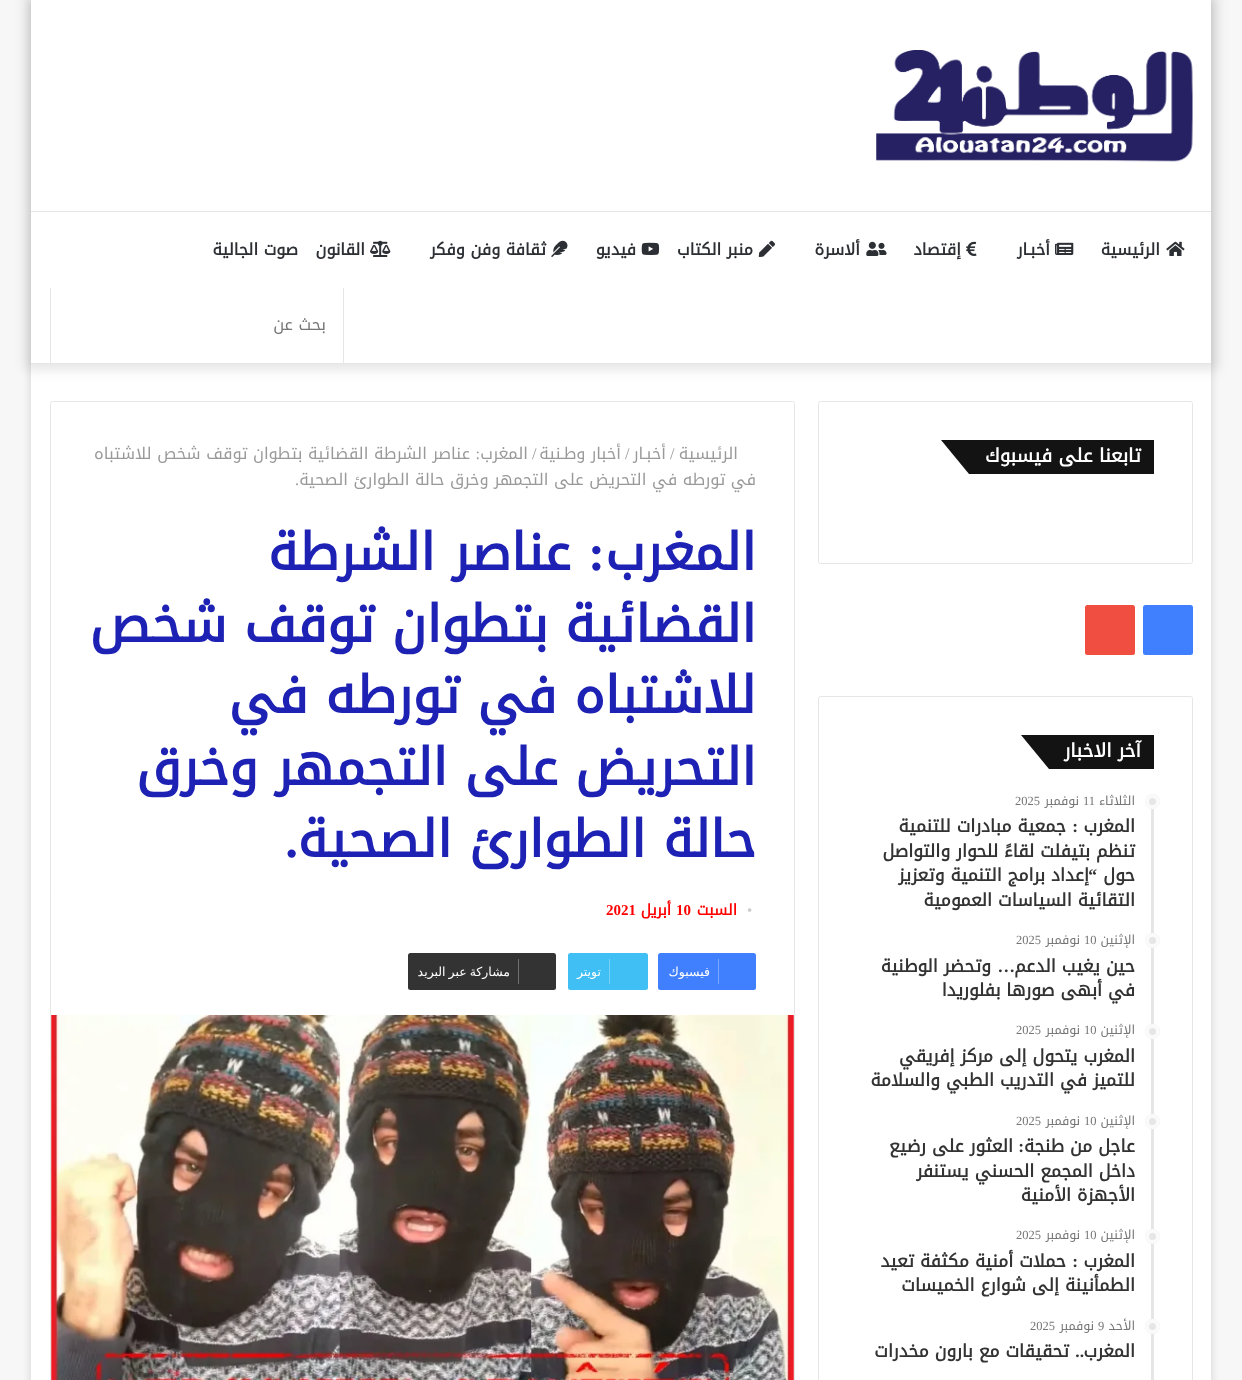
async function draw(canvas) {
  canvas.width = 1242
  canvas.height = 1380
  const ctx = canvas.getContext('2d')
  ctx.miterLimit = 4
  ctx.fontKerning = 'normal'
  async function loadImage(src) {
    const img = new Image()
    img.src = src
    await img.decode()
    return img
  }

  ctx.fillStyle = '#f7f7f7'
  ctx.fillRect(0, 0, 1242, 1380)
  ctx.fillStyle = '#ababab80'
  ctx.filter = 'blur(4.5px)'
  ctx.beginPath()
  ctx.rect(31, 1, 1180, 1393)
  ctx.fill()
  ctx.filter = 'none'
  ctx.fillStyle = '#fff'
  ctx.fillRect(31, 364, 1180, 1016)
  ctx.fillStyle = '#0000001a'
  ctx.filter = 'blur(6px)'
  ctx.beginPath()
  ctx.rect(25, -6, 1193, 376)
  ctx.fill()
  ctx.filter = 'none'
  ctx.fillStyle = '#fff'
  ctx.fillRect(31, 0, 1180, 363)
  ctx.drawImage(await loadImage('image0.png'), 876, 50, 317, 112)
  ctx.fillStyle = '#e6e6e6'
  ctx.fillRect(31, 211, 1180, 1)
  ctx.fillRect(31, 363, 1180, 1)
  ctx.drawImage(await loadImage('image1.png'), 1166, 241, 19, 15)
  ctx.direction = 'rtl'
  ctx.font = 'bold 16.25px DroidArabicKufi'
  ctx.fillStyle = '#2c2f34'
  ctx.fillText('الرئيسية', 1160, 255)
  ctx.drawImage(await loadImage('image2.png'), 1055, 242, 19, 13)
  ctx.fillText('أخبـار', 1050, 255)
  ctx.drawImage(await loadImage('image3.png'), 966, 241, 11, 15)
  ctx.fillText('إقتصاد', 961, 255)
  ctx.drawImage(await loadImage('image4.png'), 866, 241, 21, 15)
  ctx.fillText('ألاسرة', 860, 255)
  ctx.drawImage(await loadImage('image5.png'), 758, 240, 17, 17)
  ctx.fillText('منبر الكتاب', 753, 255)
  ctx.drawImage(await loadImage('image6.png'), 641, 242, 19, 13)
  ctx.fillText('فيديو', 636, 255)
  ctx.drawImage(await loadImage('image7.png'), 551, 240, 17, 17)
  ctx.fillText('ثقافة وفن وفكر', 546, 255)
  ctx.drawImage(await loadImage('image8.png'), 370, 240, 21, 17)
  ctx.fillText('القانون', 365, 255)
  ctx.fillText('صوت الجالية', 298, 255)
  ctx.fillStyle = '#e6e6e6'
  ctx.fillRect(343, 288, 1, 75)
  ctx.fillRect(50, 288, 1, 75)
  ctx.font = '16.25px DroidArabicKufi'
  ctx.fillStyle = '#767676'
  ctx.fillText('بحث عن', 326, 330)
  ctx.beginPath()
  ctx.roundRect(818.5, 401.5, 374, 162, 2)
  ctx.strokeStyle = '#e6e6e6'
  ctx.stroke()
  ctx.fillStyle = '#131313'
  ctx.fillRect(1068, 440, 86, 34)
  ctx.beginPath()
  ctx.moveTo(941, 440)
  ctx.lineTo(1068, 440)
  ctx.lineTo(1096, 474)
  ctx.lineTo(969, 474)
  ctx.closePath()
  ctx.fill()
  ctx.font = 'bold 18.75px DroidArabicKufi'
  ctx.fillStyle = '#fff'
  ctx.fillText('تابعنا على فيسبوك', 1141, 462)
  ctx.fillStyle = '#4080ff'
  ctx.beginPath()
  ctx.roundRect(1143, 605, 50, 50, 2.5)
  ctx.fill()
  ctx.fillStyle = '#ef4e41'
  ctx.beginPath()
  ctx.roundRect(1085, 605, 50, 50, 2.5)
  ctx.fill()
  ctx.beginPath()
  ctx.roundRect(818.5, 696.5, 374, 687, 2)
  ctx.stroke()
  ctx.fillStyle = '#131313'
  ctx.fillRect(1092, 735, 62, 34)
  ctx.beginPath()
  ctx.moveTo(1021, 735)
  ctx.lineTo(1092, 735)
  ctx.lineTo(1120, 769)
  ctx.lineTo(1049, 769)
  ctx.closePath()
  ctx.fill()
  ctx.fillStyle = '#fff'
  ctx.fillText('آخر الاخبار', 1141, 757)
  ctx.fillStyle = '#e6e6e6'
  ctx.fillRect(1151, 794, 3, 586)
  ctx.beginPath()
  ctx.arc(1152.5, 801.5, 7.5, 0, 2 * Math.PI)
  ctx.fill()
  ctx.beginPath()
  ctx.arc(1152.5, 801.5, 5.5, 0, 2 * Math.PI)
  ctx.strokeStyle = '#ffffffcc'
  ctx.lineWidth = 4
  ctx.stroke()
  ctx.font = '12.5px DroidArabicKufi'
  ctx.fillStyle = '#767676'
  ctx.fillText('الثلاثاء', 1135, 805)
  ctx.direction = 'ltr'
  ctx.font = '12.5px Liberation Serif'
  ctx.fillText('11', 1083, 805)
  ctx.direction = 'rtl'
  ctx.font = '12.5px DroidArabicKufi'
  ctx.fillText('نوفمبر', 1079, 805)
  ctx.direction = 'ltr'
  ctx.font = '12.5px Liberation Serif'
  ctx.fillText('2025', 1015, 805)
  ctx.direction = 'rtl'
  ctx.font = 'bold 17.5px DroidArabicKufi'
  ctx.fillStyle = '#333'
  ctx.fillText('المغرب', 1135, 832)
  ctx.font = 'bold 17.5px Liberation Serif'
  ctx.fillText(':', 1078, 832)
  ctx.font = 'bold 17.5px DroidArabicKufi'
  ctx.fillText('جمعية مبادرات للتنمية', 1066, 832)
  ctx.fillText('تنظم بتيفلت لقاءً للحوار والتواصل', 1135, 857)
  ctx.fillText('حول', 1135, 881)
  ctx.font = 'bold 17.5px Liberation Serif'
  ctx.fillText('“', 1097, 881)
  ctx.font = 'bold 17.5px DroidArabicKufi'
  ctx.fillText('إعداد برامج التنمية وتعزيز', 1089, 881)
  ctx.fillText('التقائية السياسات العمومية', 1135, 906)
  ctx.fillStyle = '#e6e6e6'
  ctx.beginPath()
  ctx.arc(1152.5, 940.5, 7.5, 0, 2 * Math.PI)
  ctx.fill()
  ctx.beginPath()
  ctx.arc(1152.5, 940.5, 5.5, 0, 2 * Math.PI)
  ctx.stroke()
  ctx.font = '12.5px DroidArabicKufi'
  ctx.fillStyle = '#767676'
  ctx.fillText('الإثنين', 1135, 944)
  ctx.direction = 'ltr'
  ctx.font = '12.5px Liberation Serif'
  ctx.fillText('10', 1084, 944)
  ctx.direction = 'rtl'
  ctx.font = '12.5px DroidArabicKufi'
  ctx.fillText('نوفمبر', 1080, 944)
  ctx.direction = 'ltr'
  ctx.font = '12.5px Liberation Serif'
  ctx.fillText('2025', 1016, 944)
  ctx.direction = 'rtl'
  ctx.font = 'bold 17.5px DroidArabicKufi'
  ctx.fillStyle = '#333'
  ctx.fillText('حين يغيب الدعم', 1135, 972)
  ctx.font = 'bold 17.5px Liberation Serif'
  ctx.fillText('…', 1015, 972)
  ctx.font = 'bold 17.5px DroidArabicKufi'
  ctx.fillText('وتحضر الوطنية', 991, 972)
  ctx.fillText('في أبهى صورها بفلوريدا', 1135, 996)
  ctx.fillStyle = '#e6e6e6'
  ctx.beginPath()
  ctx.arc(1152.5, 1031.5, 7.5, 0, 2 * Math.PI)
  ctx.fill()
  ctx.beginPath()
  ctx.arc(1152.5, 1031.5, 5.5, 0, 2 * Math.PI)
  ctx.stroke()
  ctx.font = '12.5px DroidArabicKufi'
  ctx.fillStyle = '#767676'
  ctx.fillText('الإثنين', 1135, 1034)
  ctx.direction = 'ltr'
  ctx.font = '12.5px Liberation Serif'
  ctx.fillText('10', 1084, 1034)
  ctx.direction = 'rtl'
  ctx.font = '12.5px DroidArabicKufi'
  ctx.fillText('نوفمبر', 1080, 1034)
  ctx.direction = 'ltr'
  ctx.font = '12.5px Liberation Serif'
  ctx.fillText('2025', 1016, 1034)
  ctx.direction = 'rtl'
  ctx.font = 'bold 17.5px DroidArabicKufi'
  ctx.fillStyle = '#333'
  ctx.fillText('المغرب يتحول إلى مركز إفريقي', 1135, 1062)
  ctx.fillText('للتميز في التدريب الطبي والسلامة', 1135, 1086)
  ctx.fillStyle = '#e6e6e6'
  ctx.beginPath()
  ctx.arc(1152.5, 1121.5, 7.5, 0, 2 * Math.PI)
  ctx.fill()
  ctx.beginPath()
  ctx.arc(1152.5, 1121.5, 5.5, 0, 2 * Math.PI)
  ctx.stroke()
  ctx.font = '12.5px DroidArabicKufi'
  ctx.fillStyle = '#767676'
  ctx.fillText('الإثنين', 1135, 1125)
  ctx.direction = 'ltr'
  ctx.font = '12.5px Liberation Serif'
  ctx.fillText('10', 1084, 1125)
  ctx.direction = 'rtl'
  ctx.font = '12.5px DroidArabicKufi'
  ctx.fillText('نوفمبر', 1080, 1125)
  ctx.direction = 'ltr'
  ctx.font = '12.5px Liberation Serif'
  ctx.fillText('2025', 1016, 1125)
  ctx.direction = 'rtl'
  ctx.font = 'bold 17.5px DroidArabicKufi'
  ctx.fillStyle = '#333'
  ctx.fillText('عاجل من طنجة', 1135, 1152)
  ctx.font = 'bold 17.5px Liberation Serif'
  ctx.fillText(':', 1024, 1152)
  ctx.font = 'bold 17.5px DroidArabicKufi'
  ctx.fillText('العثور على رضيع', 1013, 1152)
  ctx.fillText('داخل المجمع الحسني يستنفر', 1135, 1177)
  ctx.fillText('الأجهزة الأمنية', 1135, 1201)
  ctx.fillStyle = '#e6e6e6'
  ctx.beginPath()
  ctx.arc(1152.5, 1236.5, 7.5, 0, 2 * Math.PI)
  ctx.fill()
  ctx.beginPath()
  ctx.arc(1152.5, 1236.5, 5.5, 0, 2 * Math.PI)
  ctx.stroke()
  ctx.font = '12.5px DroidArabicKufi'
  ctx.fillStyle = '#767676'
  ctx.fillText('الإثنين', 1135, 1239)
  ctx.direction = 'ltr'
  ctx.font = '12.5px Liberation Serif'
  ctx.fillText('10', 1084, 1239)
  ctx.direction = 'rtl'
  ctx.font = '12.5px DroidArabicKufi'
  ctx.fillText('نوفمبر', 1080, 1239)
  ctx.direction = 'ltr'
  ctx.font = '12.5px Liberation Serif'
  ctx.fillText('2025', 1016, 1239)
  ctx.direction = 'rtl'
  ctx.font = 'bold 17.5px DroidArabicKufi'
  ctx.fillStyle = '#333'
  ctx.fillText('المغرب', 1135, 1267)
  ctx.font = 'bold 17.5px Liberation Serif'
  ctx.fillText(':', 1078, 1267)
  ctx.font = 'bold 17.5px DroidArabicKufi'
  ctx.fillText('حملات أمنية مكثفة تعيد', 1066, 1267)
  ctx.fillText('الطمأنينة إلى شوارع الخميسات', 1135, 1291)
  ctx.fillStyle = '#e6e6e6'
  ctx.beginPath()
  ctx.arc(1152.5, 1326.5, 7.5, 0, 2 * Math.PI)
  ctx.fill()
  ctx.beginPath()
  ctx.arc(1152.5, 1326.5, 5.5, 0, 2 * Math.PI)
  ctx.stroke()
  ctx.font = '12.5px DroidArabicKufi'
  ctx.fillStyle = '#767676'
  ctx.fillText('الأحد', 1135, 1330)
  ctx.direction = 'ltr'
  ctx.font = '12.5px Liberation Serif'
  ctx.fillText('9', 1098, 1330)
  ctx.direction = 'rtl'
  ctx.font = '12.5px DroidArabicKufi'
  ctx.fillText('نوفمبر', 1094, 1330)
  ctx.direction = 'ltr'
  ctx.font = '12.5px Liberation Serif'
  ctx.fillText('2025', 1030, 1330)
  ctx.direction = 'rtl'
  ctx.font = 'bold 17.5px DroidArabicKufi'
  ctx.fillStyle = '#333'
  ctx.fillText('المغرب', 1135, 1357)
  ctx.font = 'bold 17.5px Liberation Serif'
  ctx.fillText('..', 1084, 1357)
  ctx.font = 'bold 17.5px DroidArabicKufi'
  ctx.fillText('تحقيقات مع بارون مخدرات', 1069, 1357)
  ctx.beginPath()
  ctx.roundRect(50.5, 401.5, 744, 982, 2)
  ctx.strokeStyle = '#e6e6e6'
  ctx.lineWidth = 1
  ctx.stroke()
  ctx.font = '16.25px DroidArabicKufi'
  ctx.fillStyle = '#999'
  ctx.fillText('الرئيسية', 738, 459)
  ctx.direction = 'ltr'
  ctx.font = '16.25px Liberation Serif'
  ctx.fillText('/', 670, 459)
  ctx.direction = 'rtl'
  ctx.font = '16.25px DroidArabicKufi'
  ctx.fillText('أخبـار', 666, 459)
  ctx.direction = 'ltr'
  ctx.font = '16.25px Liberation Serif'
  ctx.fillText('/', 625, 459)
  ctx.direction = 'rtl'
  ctx.font = '16.25px DroidArabicKufi'
  ctx.fillText('أخبار وطـنية', 621, 459)
  ctx.direction = 'ltr'
  ctx.font = '16.25px Liberation Serif'
  ctx.fillText('/', 532, 459)
  ctx.direction = 'rtl'
  ctx.font = '16.25px DroidArabicKufi'
  ctx.fillText('المغرب', 528, 459)
  ctx.font = '16.25px Liberation Serif'
  ctx.fillText(':', 480, 459)
  ctx.font = '16.25px DroidArabicKufi'
  ctx.fillText('عناصر الشرطة القضائية بتطوان توقف شخص للاشتباه', 470, 459)
  ctx.fillText('في تورطه في التحريض على التجمهر وخرق حالة الطوارئ الصحية', 756, 485)
  ctx.font = '16.25px Liberation Serif'
  ctx.fillText('.', 299, 485)
  ctx.font = 'bold 51.25px DroidArabicKufi'
  ctx.fillStyle = '#1e22b4'
  ctx.fillText('المغرب', 756, 570)
  ctx.font = 'bold 51.25px Liberation Serif'
  ctx.fillText(':', 605, 570)
  ctx.font = 'bold 51.25px DroidArabicKufi'
  ctx.fillText('عناصر الشرطة', 571, 570)
  ctx.fillText('القضائية بتطوان توقف شخص', 756, 642)
  ctx.fillText('للاشتباه في تورطه في', 756, 713)
  ctx.fillText('التحريض على التجمهر وخرق', 756, 785)
  ctx.fillText('حالة الطوارئ الصحية', 756, 857)
  ctx.font = 'bold 51.25px Liberation Serif'
  ctx.fillText('.', 298, 857)
  ctx.direction = 'ltr'
  ctx.font = '15px Liberation Serif'
  ctx.fillStyle = '#ccc'
  ctx.fillText('•', 747, 915)
  ctx.direction = 'rtl'
  ctx.font = 'bold 15px DroidArabicKufi'
  ctx.fillStyle = '#f00'
  ctx.fillText('السبت', 737, 915)
  ctx.direction = 'ltr'
  ctx.font = 'bold 15px Liberation Serif'
  ctx.fillText('10', 676, 915)
  ctx.direction = 'rtl'
  ctx.font = 'bold 15px DroidArabicKufi'
  ctx.fillText('أبريل', 671, 915)
  ctx.direction = 'ltr'
  ctx.font = 'bold 15px Liberation Serif'
  ctx.fillText('2021', 606, 915)
  ctx.fillStyle = '#4080ff'
  ctx.beginPath()
  ctx.roundRect(658, 953, 98, 37, 2.5)
  ctx.fill()
  ctx.fillStyle = '#79a6ff'
  ctx.fillRect(718, 959, 1, 25)
  ctx.direction = 'rtl'
  ctx.font = '12.5px DejaVu Sans'
  ctx.fillStyle = '#fff'
  ctx.fillText('فيسبوك', 710, 976)
  ctx.fillStyle = '#40bff5'
  ctx.beginPath()
  ctx.roundRect(568, 953, 80, 37, 2.5)
  ctx.fill()
  ctx.fillStyle = '#79d2f8'
  ctx.fillRect(609, 959, 1, 25)
  ctx.fillStyle = '#fff'
  ctx.fillText('تويتر', 601, 976)
  ctx.fillStyle = '#333'
  ctx.beginPath()
  ctx.roundRect(408, 953, 148, 37, 2.5)
  ctx.fill()
  ctx.fillStyle = '#707070'
  ctx.fillRect(518, 959, 1, 25)
  ctx.wordSpacing = '-1px'
  ctx.fillStyle = '#fff'
  ctx.fillText('مشاركة عبر البريد', 510, 976)
  ctx.drawImage(await loadImage('image9.png'), 51, 1015, 743, 365)
}

draw(document.querySelector('canvas'))
